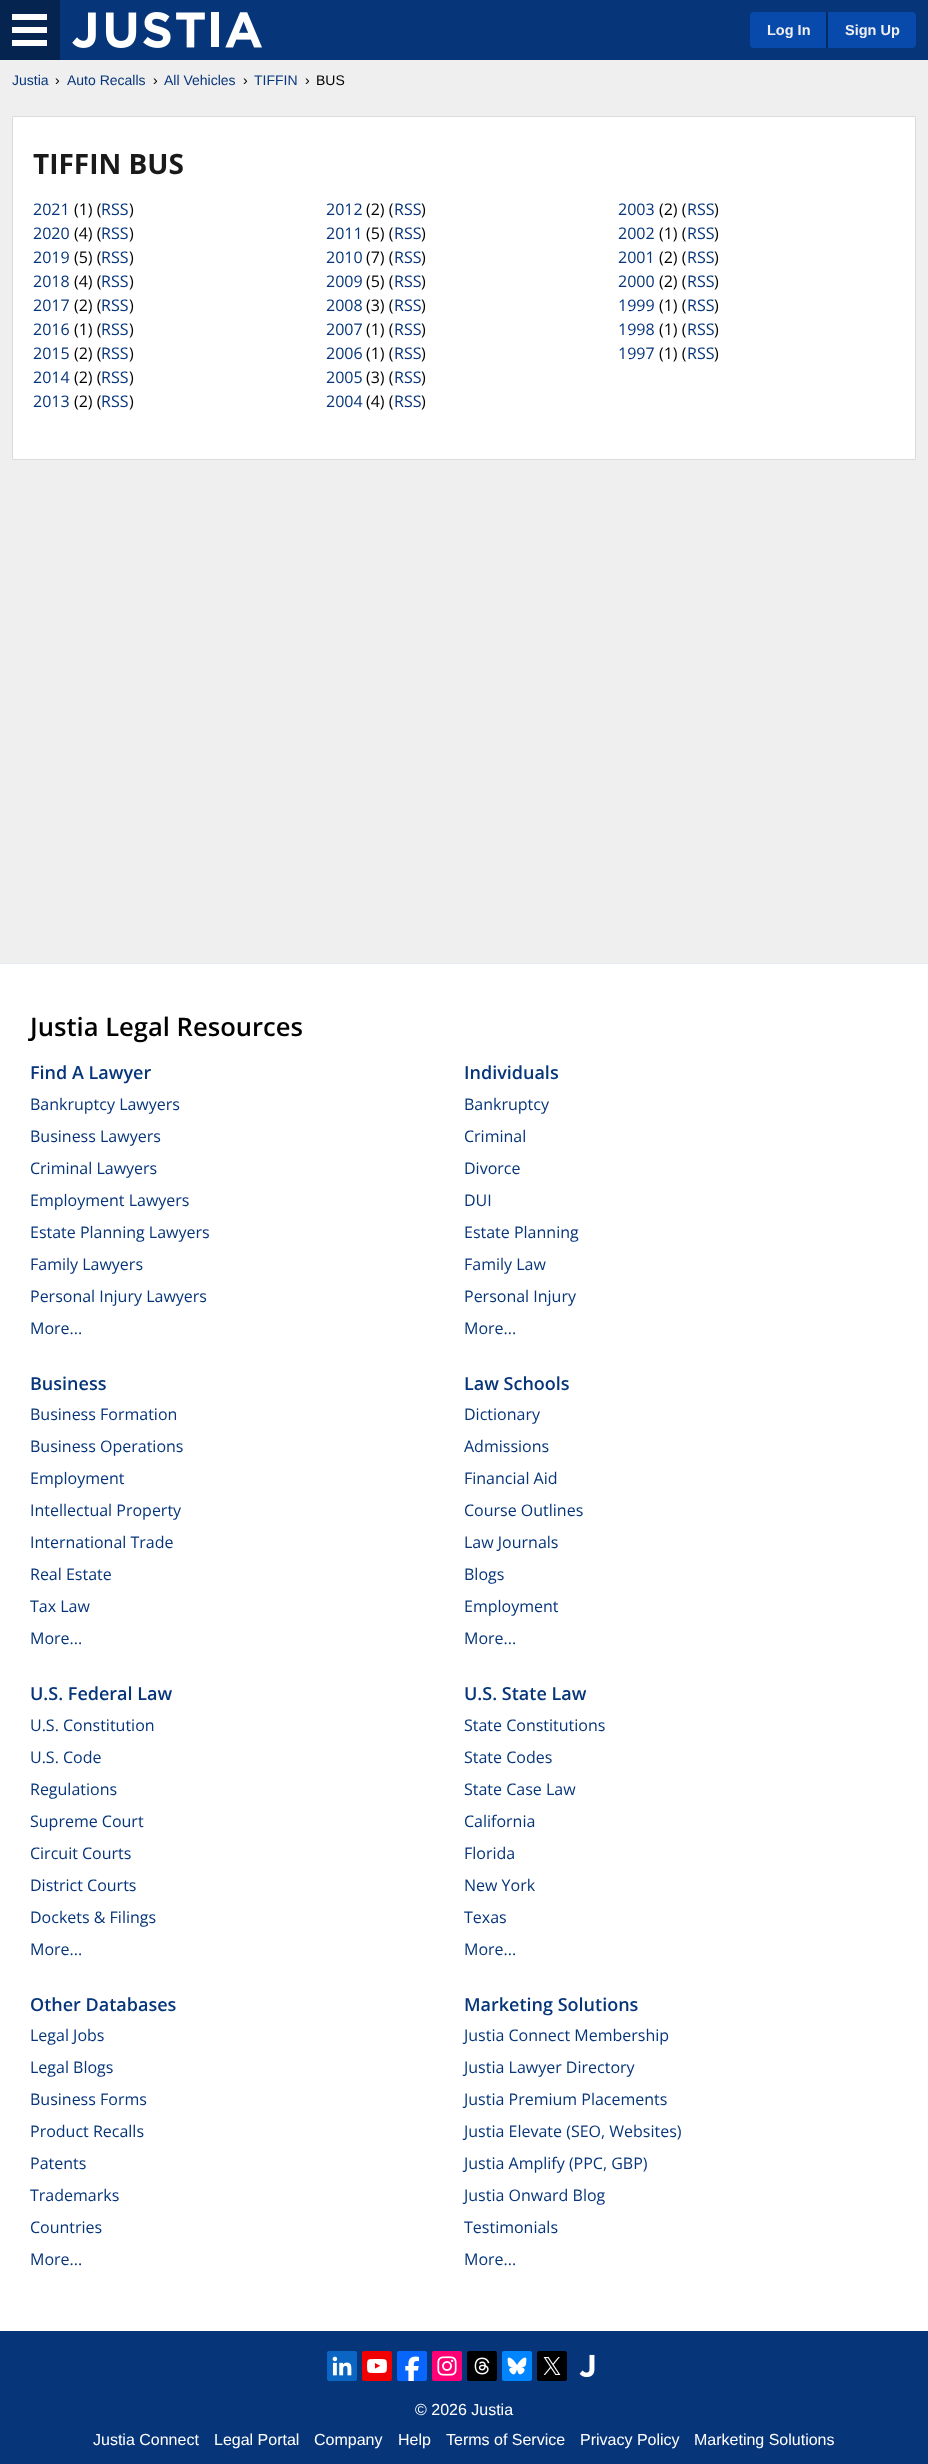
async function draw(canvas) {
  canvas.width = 928
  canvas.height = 2464
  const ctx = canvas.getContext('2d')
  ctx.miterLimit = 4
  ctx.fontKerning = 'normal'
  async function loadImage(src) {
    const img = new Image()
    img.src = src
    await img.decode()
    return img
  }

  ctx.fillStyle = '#efefef'
  ctx.fillRect(0, 0, 928, 2464)
  ctx.fillStyle = '#06357a'
  ctx.fillRect(60, 0, 868, 60)
  ctx.fillStyle = '#052450'
  ctx.fillRect(0, 0, 60, 60)
  ctx.fillStyle = '#fff'
  ctx.fillRect(12, 14, 35, 6)
  ctx.fillRect(12, 27, 35, 6)
  ctx.fillRect(12, 40, 35, 6)
  ctx.drawImage(await loadImage('image0.png'), 72, 12, 190, 36)
  ctx.fillStyle = '#084aab'
  ctx.beginPath()
  ctx.roundRect(750, 12, 76, 36, [4, 0, 0, 4])
  ctx.fill()
  ctx.font = 'bold 14.5px Liberation Sans'
  ctx.fillStyle = '#efefef'
  ctx.fillText('Log In', 767, 35)
  ctx.fillStyle = '#084aab'
  ctx.beginPath()
  ctx.roundRect(826, 12, 90, 36, [0, 4, 4, 0])
  ctx.fill()
  ctx.fillStyle = '#052a60'
  ctx.fillRect(826, 12, 2, 36)
  ctx.fillStyle = '#efefef'
  ctx.fillText('Sign Up', 845, 35)
  ctx.font = '14px Liberation Sans'
  ctx.fillStyle = '#06357a'
  ctx.fillText('Justia', 12, 85)
  ctx.fillStyle = '#000'
  ctx.fillText('›', 55, 85)
  ctx.fillStyle = '#06357a'
  ctx.fillText('Auto Recalls', 67, 85)
  ctx.fillStyle = '#000'
  ctx.fillText('›', 153, 85)
  ctx.fillStyle = '#06357a'
  ctx.fillText('All Vehicles', 164, 85)
  ctx.fillStyle = '#000'
  ctx.fillText('›', 243, 85)
  ctx.fillStyle = '#06357a'
  ctx.fillText('TIFFIN', 254, 85)
  ctx.fillStyle = '#000'
  ctx.fillText('›', 305, 85)
  ctx.fillText('BUS', 316, 85)
  ctx.fillStyle = '#fff'
  ctx.beginPath()
  ctx.rect(12.5, 116.5, 903, 343)
  ctx.fill()
  ctx.strokeStyle = '#dbdbdb'
  ctx.stroke()
  ctx.font = 'bold 28px Open Sans'
  ctx.fillStyle = '#1a1a1a'
  ctx.fillText('TIFFIN BUS', 33, 174)
  ctx.font = '16px Open Sans'
  ctx.fillStyle = '#06357a'
  ctx.fillText('2021', 33, 215)
  ctx.fillStyle = '#000'
  ctx.fillText('(1) (', 74, 215)
  ctx.fillStyle = '#06357a'
  ctx.fillText('RSS', 101, 215)
  ctx.fillStyle = '#000'
  ctx.fillText(')', 129, 215)
  ctx.fillStyle = '#06357a'
  ctx.fillText('2012', 326, 215)
  ctx.fillStyle = '#000'
  ctx.fillText('(2) (', 366, 215)
  ctx.fillStyle = '#06357a'
  ctx.fillText('RSS', 394, 215)
  ctx.fillStyle = '#000'
  ctx.fillText(')', 421, 215)
  ctx.fillStyle = '#06357a'
  ctx.fillText('2003', 618, 215)
  ctx.fillStyle = '#000'
  ctx.fillText('(2) (', 659, 215)
  ctx.fillStyle = '#06357a'
  ctx.fillText('RSS', 687, 215)
  ctx.fillStyle = '#000'
  ctx.fillText(')', 714, 215)
  ctx.fillStyle = '#06357a'
  ctx.fillText('2020', 33, 239)
  ctx.fillStyle = '#000'
  ctx.fillText('(4) (', 74, 239)
  ctx.fillStyle = '#06357a'
  ctx.fillText('RSS', 101, 239)
  ctx.fillStyle = '#000'
  ctx.fillText(')', 129, 239)
  ctx.fillStyle = '#06357a'
  ctx.fillText('2011', 326, 239)
  ctx.fillStyle = '#000'
  ctx.fillText('(5) (', 366, 239)
  ctx.fillStyle = '#06357a'
  ctx.fillText('RSS', 394, 239)
  ctx.fillStyle = '#000'
  ctx.fillText(')', 421, 239)
  ctx.fillStyle = '#06357a'
  ctx.fillText('2002', 618, 239)
  ctx.fillStyle = '#000'
  ctx.fillText('(1) (', 659, 239)
  ctx.fillStyle = '#06357a'
  ctx.fillText('RSS', 687, 239)
  ctx.fillStyle = '#000'
  ctx.fillText(')', 714, 239)
  ctx.fillStyle = '#06357a'
  ctx.fillText('2019', 33, 263)
  ctx.fillStyle = '#000'
  ctx.fillText('(5) (', 74, 263)
  ctx.fillStyle = '#06357a'
  ctx.fillText('RSS', 101, 263)
  ctx.fillStyle = '#000'
  ctx.fillText(')', 129, 263)
  ctx.fillStyle = '#06357a'
  ctx.fillText('2010', 326, 263)
  ctx.fillStyle = '#000'
  ctx.fillText('(7) (', 366, 263)
  ctx.fillStyle = '#06357a'
  ctx.fillText('RSS', 394, 263)
  ctx.fillStyle = '#000'
  ctx.fillText(')', 421, 263)
  ctx.fillStyle = '#06357a'
  ctx.fillText('2001', 618, 263)
  ctx.fillStyle = '#000'
  ctx.fillText('(2) (', 659, 263)
  ctx.fillStyle = '#06357a'
  ctx.fillText('RSS', 687, 263)
  ctx.fillStyle = '#000'
  ctx.fillText(')', 714, 263)
  ctx.fillStyle = '#06357a'
  ctx.fillText('2018', 33, 287)
  ctx.fillStyle = '#000'
  ctx.fillText('(4) (', 74, 287)
  ctx.fillStyle = '#06357a'
  ctx.fillText('RSS', 101, 287)
  ctx.fillStyle = '#000'
  ctx.fillText(')', 129, 287)
  ctx.fillStyle = '#06357a'
  ctx.fillText('2009', 326, 287)
  ctx.fillStyle = '#000'
  ctx.fillText('(5) (', 366, 287)
  ctx.fillStyle = '#06357a'
  ctx.fillText('RSS', 394, 287)
  ctx.fillStyle = '#000'
  ctx.fillText(')', 421, 287)
  ctx.fillStyle = '#06357a'
  ctx.fillText('2000', 618, 287)
  ctx.fillStyle = '#000'
  ctx.fillText('(2) (', 659, 287)
  ctx.fillStyle = '#06357a'
  ctx.fillText('RSS', 687, 287)
  ctx.fillStyle = '#000'
  ctx.fillText(')', 714, 287)
  ctx.fillStyle = '#06357a'
  ctx.fillText('2017', 33, 311)
  ctx.fillStyle = '#000'
  ctx.fillText('(2) (', 74, 311)
  ctx.fillStyle = '#06357a'
  ctx.fillText('RSS', 101, 311)
  ctx.fillStyle = '#000'
  ctx.fillText(')', 129, 311)
  ctx.fillStyle = '#06357a'
  ctx.fillText('2008', 326, 311)
  ctx.fillStyle = '#000'
  ctx.fillText('(3) (', 366, 311)
  ctx.fillStyle = '#06357a'
  ctx.fillText('RSS', 394, 311)
  ctx.fillStyle = '#000'
  ctx.fillText(')', 421, 311)
  ctx.fillStyle = '#06357a'
  ctx.fillText('1999', 618, 311)
  ctx.fillStyle = '#000'
  ctx.fillText('(1) (', 659, 311)
  ctx.fillStyle = '#06357a'
  ctx.fillText('RSS', 687, 311)
  ctx.fillStyle = '#000'
  ctx.fillText(')', 714, 311)
  ctx.fillStyle = '#06357a'
  ctx.fillText('2016', 33, 335)
  ctx.fillStyle = '#000'
  ctx.fillText('(1) (', 74, 335)
  ctx.fillStyle = '#06357a'
  ctx.fillText('RSS', 101, 335)
  ctx.fillStyle = '#000'
  ctx.fillText(')', 129, 335)
  ctx.fillStyle = '#06357a'
  ctx.fillText('2007', 326, 335)
  ctx.fillStyle = '#000'
  ctx.fillText('(1) (', 366, 335)
  ctx.fillStyle = '#06357a'
  ctx.fillText('RSS', 394, 335)
  ctx.fillStyle = '#000'
  ctx.fillText(')', 421, 335)
  ctx.fillStyle = '#06357a'
  ctx.fillText('1998', 618, 335)
  ctx.fillStyle = '#000'
  ctx.fillText('(1) (', 659, 335)
  ctx.fillStyle = '#06357a'
  ctx.fillText('RSS', 687, 335)
  ctx.fillStyle = '#000'
  ctx.fillText(')', 714, 335)
  ctx.fillStyle = '#06357a'
  ctx.fillText('2015', 33, 359)
  ctx.fillStyle = '#000'
  ctx.fillText('(2) (', 74, 359)
  ctx.fillStyle = '#06357a'
  ctx.fillText('RSS', 101, 359)
  ctx.fillStyle = '#000'
  ctx.fillText(')', 129, 359)
  ctx.fillStyle = '#06357a'
  ctx.fillText('2006', 326, 359)
  ctx.fillStyle = '#000'
  ctx.fillText('(1) (', 366, 359)
  ctx.fillStyle = '#06357a'
  ctx.fillText('RSS', 394, 359)
  ctx.fillStyle = '#000'
  ctx.fillText(')', 421, 359)
  ctx.fillStyle = '#06357a'
  ctx.fillText('1997', 618, 359)
  ctx.fillStyle = '#000'
  ctx.fillText('(1) (', 659, 359)
  ctx.fillStyle = '#06357a'
  ctx.fillText('RSS', 687, 359)
  ctx.fillStyle = '#000'
  ctx.fillText(')', 714, 359)
  ctx.fillStyle = '#06357a'
  ctx.fillText('2014', 33, 383)
  ctx.fillStyle = '#000'
  ctx.fillText('(2) (', 74, 383)
  ctx.fillStyle = '#06357a'
  ctx.fillText('RSS', 101, 383)
  ctx.fillStyle = '#000'
  ctx.fillText(')', 129, 383)
  ctx.fillStyle = '#06357a'
  ctx.fillText('2005', 326, 383)
  ctx.fillStyle = '#000'
  ctx.fillText('(3) (', 366, 383)
  ctx.fillStyle = '#06357a'
  ctx.fillText('RSS', 394, 383)
  ctx.fillStyle = '#000'
  ctx.fillText(')', 421, 383)
  ctx.fillStyle = '#06357a'
  ctx.fillText('2013', 33, 407)
  ctx.fillStyle = '#000'
  ctx.fillText('(2) (', 74, 407)
  ctx.fillStyle = '#06357a'
  ctx.fillText('RSS', 101, 407)
  ctx.fillStyle = '#000'
  ctx.fillText(')', 129, 407)
  ctx.fillStyle = '#06357a'
  ctx.fillText('2004', 326, 407)
  ctx.fillStyle = '#000'
  ctx.fillText('(4) (', 366, 407)
  ctx.fillStyle = '#06357a'
  ctx.fillText('RSS', 394, 407)
  ctx.fillStyle = '#000'
  ctx.fillText(')', 421, 407)
  ctx.fillStyle = '#fff'
  ctx.fillRect(0, 964, 928, 1367)
  ctx.fillStyle = '#e6eaf1'
  ctx.fillRect(0, 963, 928, 1)
  ctx.font = '600 25.6px Open Sans'
  ctx.fillStyle = '#000'
  ctx.fillText('Justia Legal Resources', 30, 1036)
  ctx.font = '600 18px Open Sans'
  ctx.fillStyle = '#06357a'
  ctx.fillText('Find A Lawyer', 30, 1079)
  ctx.font = '16px Open Sans'
  ctx.fillText('Bankruptcy Lawyers', 30, 1110)
  ctx.fillText('Business Lawyers', 30, 1142)
  ctx.fillText('Criminal Lawyers', 30, 1174)
  ctx.fillText('Employment Lawyers', 30, 1206)
  ctx.fillText('Estate Planning Lawyers', 30, 1238)
  ctx.fillText('Family Lawyers', 30, 1270)
  ctx.fillText('Personal Injury Lawyers', 30, 1302)
  ctx.fillText('More...', 30, 1334)
  ctx.font = '600 18px Open Sans'
  ctx.fillText('Individuals', 464, 1079)
  ctx.font = '16px Open Sans'
  ctx.fillText('Bankruptcy', 464, 1110)
  ctx.fillText('Criminal', 464, 1142)
  ctx.fillText('Divorce', 464, 1174)
  ctx.fillText('DUI', 464, 1206)
  ctx.fillText('Estate Planning', 464, 1238)
  ctx.fillText('Family Law', 464, 1270)
  ctx.fillText('Personal Injury', 464, 1302)
  ctx.fillText('More...', 464, 1334)
  ctx.font = '600 18px Open Sans'
  ctx.fillText('Business', 30, 1390)
  ctx.font = '16px Open Sans'
  ctx.fillText('Business Formation', 30, 1420)
  ctx.fillText('Business Operations', 30, 1452)
  ctx.fillText('Employment', 30, 1484)
  ctx.fillText('Intellectual Property', 30, 1516)
  ctx.fillText('International Trade', 30, 1548)
  ctx.fillText('Real Estate', 30, 1580)
  ctx.fillText('Tax Law', 30, 1612)
  ctx.fillText('More...', 30, 1644)
  ctx.font = '600 18px Open Sans'
  ctx.fillText('Law Schools', 464, 1390)
  ctx.font = '16px Open Sans'
  ctx.fillText('Dictionary', 464, 1420)
  ctx.fillText('Admissions', 464, 1452)
  ctx.fillText('Financial Aid', 464, 1484)
  ctx.fillText('Course Outlines', 464, 1516)
  ctx.fillText('Law Journals', 464, 1548)
  ctx.fillText('Blogs', 464, 1580)
  ctx.fillText('Employment', 464, 1612)
  ctx.fillText('More...', 464, 1644)
  ctx.font = '600 18px Open Sans'
  ctx.fillText('U.S. Federal Law', 30, 1700)
  ctx.font = '16px Open Sans'
  ctx.fillText('U.S. Constitution', 30, 1731)
  ctx.fillText('U.S. Code', 30, 1763)
  ctx.fillText('Regulations', 30, 1795)
  ctx.fillText('Supreme Court', 30, 1827)
  ctx.fillText('Circuit Courts', 30, 1859)
  ctx.fillText('District Courts', 30, 1891)
  ctx.fillText('Dockets & Filings', 30, 1923)
  ctx.fillText('More...', 30, 1955)
  ctx.font = '600 18px Open Sans'
  ctx.fillText('U.S. State Law', 464, 1700)
  ctx.font = '16px Open Sans'
  ctx.fillText('State Constitutions', 464, 1731)
  ctx.fillText('State Codes', 464, 1763)
  ctx.fillText('State Case Law', 464, 1795)
  ctx.fillText('California', 464, 1827)
  ctx.fillText('Florida', 464, 1859)
  ctx.fillText('New York', 464, 1891)
  ctx.fillText('Texas', 464, 1923)
  ctx.fillText('More...', 464, 1955)
  ctx.font = '600 18px Open Sans'
  ctx.fillText('Other Databases', 30, 2011)
  ctx.font = '16px Open Sans'
  ctx.fillText('Legal Jobs', 30, 2041)
  ctx.fillText('Legal Blogs', 30, 2073)
  ctx.fillText('Business Forms', 30, 2105)
  ctx.fillText('Product Recalls', 30, 2137)
  ctx.fillText('Patents', 30, 2169)
  ctx.fillText('Trademarks', 30, 2201)
  ctx.fillText('Countries', 30, 2233)
  ctx.fillText('More...', 30, 2265)
  ctx.font = '600 18px Open Sans'
  ctx.fillText('Marketing Solutions', 464, 2011)
  ctx.font = '16px Open Sans'
  ctx.fillText('Justia Connect Membership', 464, 2041)
  ctx.fillText('Justia Lawyer Directory', 464, 2073)
  ctx.fillText('Justia Premium Placements', 464, 2105)
  ctx.fillText('Justia Elevate (SEO, Websites)', 464, 2137)
  ctx.fillText('Justia Amplify (PPC, GBP)', 464, 2169)
  ctx.fillText('Justia Onward Blog', 464, 2201)
  ctx.fillText('Testimonials', 464, 2233)
  ctx.fillText('More...', 464, 2265)
  ctx.fillRect(0, 2331, 928, 133)
  ctx.drawImage(await loadImage('image1.png'), 327, 2351, 30, 30)
  ctx.drawImage(await loadImage('image2.png'), 362, 2351, 30, 30)
  ctx.drawImage(await loadImage('image3.png'), 397, 2351, 30, 30)
  ctx.drawImage(await loadImage('image4.png'), 432, 2351, 30, 30)
  ctx.drawImage(await loadImage('image5.png'), 467, 2351, 30, 30)
  ctx.drawImage(await loadImage('image6.png'), 502, 2351, 30, 30)
  ctx.drawImage(await loadImage('image7.png'), 537, 2351, 30, 30)
  ctx.drawImage(await loadImage('image8.png'), 579, 2354, 16, 24)
  ctx.font = '16px Liberation Sans'
  ctx.fillStyle = '#fff'
  ctx.fillText('© 2026 Justia', 415, 2415)
  ctx.fillText('Justia Connect', 93, 2445)
  ctx.fillText('Legal Portal', 214, 2445)
  ctx.fillText('Company', 314, 2445)
  ctx.fillText('Help', 398, 2445)
  ctx.fillText('Terms of Service', 446, 2445)
  ctx.fillText('Privacy Policy', 580, 2445)
  ctx.fillText('Marketing Solutions', 694, 2445)
}

draw(document.querySelector('canvas'))
